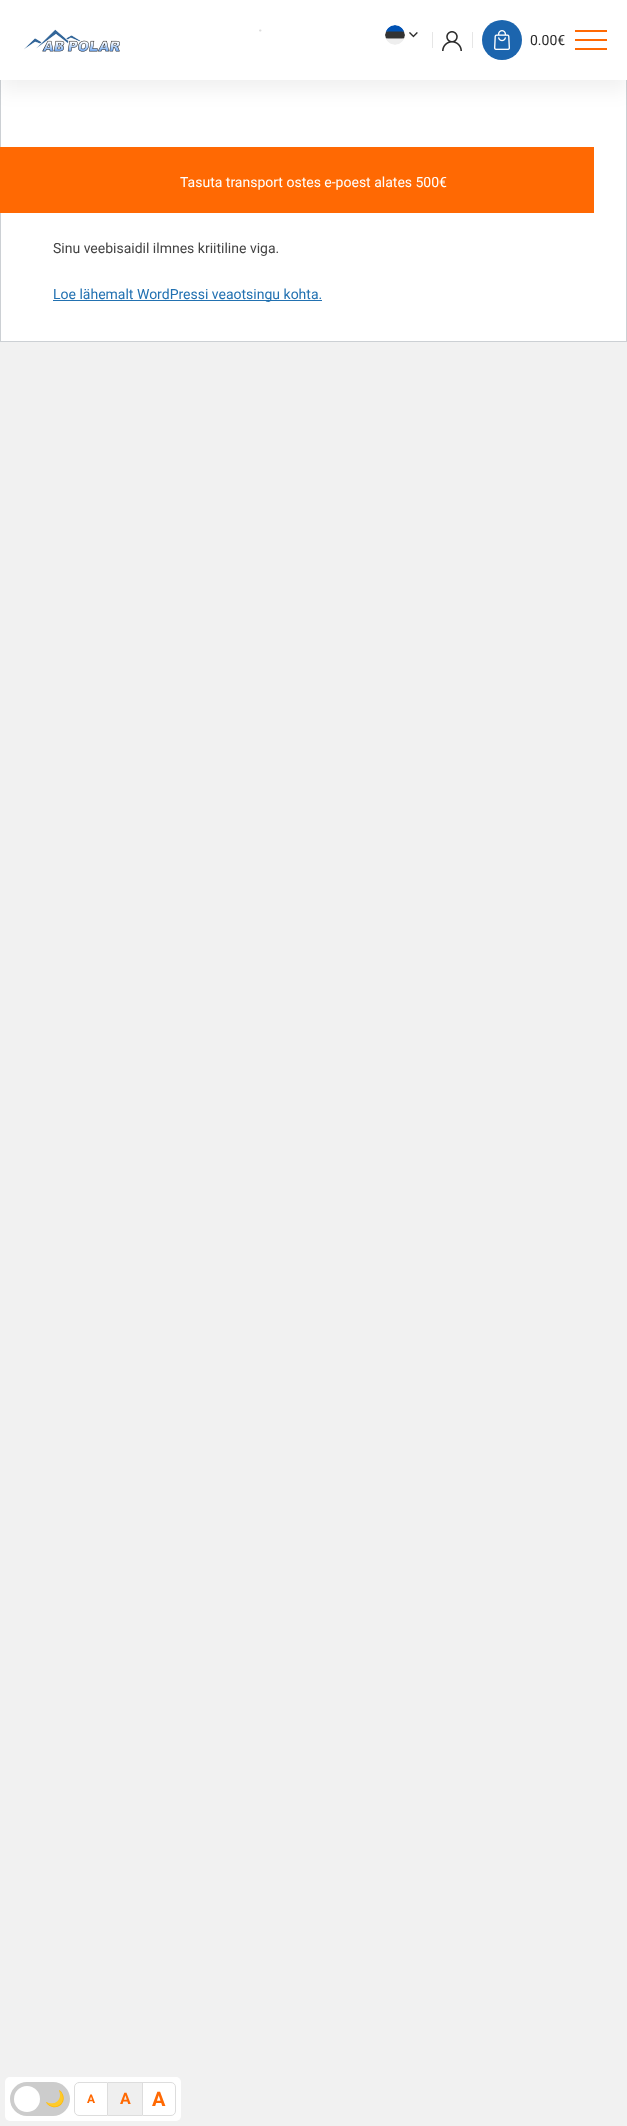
async function draw(canvas) {
  canvas.width = 627
  canvas.height = 2126
  const ctx = canvas.getContext('2d')
  ctx.miterLimit = 4
  ctx.fontKerning = 'normal'
  async function loadImage(src) {
    const img = new Image()
    img.src = src
    await img.decode()
    return img
  }

  ctx.fillStyle = '#f1f1f1'
  ctx.fillRect(0, 0, 627, 2126)
  ctx.fillStyle = '#fff'
  ctx.fillRect(1, 80, 625, 261)
  ctx.strokeStyle = '#ccd0d4'
  ctx.strokeRect(0.5, 50.5, 626, 291)
  ctx.fillStyle = '#0000000f'
  ctx.filter = 'blur(10px)'
  ctx.beginPath()
  ctx.rect(0, 10, 627, 80)
  ctx.fill()
  ctx.filter = 'none'
  ctx.fillStyle = '#fff'
  ctx.fillRect(0, 0, 627, 80)
  ctx.drawImage(await loadImage('image0.png'), 24, 29, 96, 23)
  ctx.beginPath()
  ctx.moveTo(260, 30.5)
  ctx.lineTo(260.5, 30.5)
  ctx.strokeStyle = '#ddd'
  ctx.lineWidth = 1.9
  ctx.lineCap = 'round'
  ctx.stroke()
  ctx.drawImage(await loadImage('image1.png'), 385, 25, 20, 20)
  ctx.drawImage(await loadImage('image2.png'), 409, 32, 9, 6)
  ctx.fillStyle = '#e6e6e6'
  ctx.fillRect(432, 32, 1, 16)
  ctx.drawImage(await loadImage('image3.png'), 442, 31, 20, 20)
  ctx.fillRect(472, 32, 1, 16)
  ctx.fillStyle = '#1c65ae'
  ctx.beginPath()
  ctx.arc(502, 40, 20, 0, 2 * Math.PI)
  ctx.fill()
  ctx.drawImage(await loadImage('image4.png'), 494, 30, 16, 20)
  ctx.font = '14px Roboto'
  ctx.fillStyle = '#2c2c2c'
  ctx.fillText('0.00€', 530, 45)
  ctx.fillStyle = '#ff6903'
  ctx.fillRect(575, 30, 32, 2)
  ctx.fillRect(575, 39, 32, 2)
  ctx.fillRect(575, 48, 32, 2)
  ctx.fillStyle = '#fff'
  ctx.beginPath()
  ctx.roundRect(5, 2077, 176, 44, 5)
  ctx.fill()
  ctx.fillStyle = '#ccc'
  ctx.beginPath()
  ctx.roundRect(10, 2082, 60, 34, 17)
  ctx.fill()
  ctx.fillStyle = '#fff'
  ctx.beginPath()
  ctx.arc(27, 2099, 13, 0, 2 * Math.PI)
  ctx.fill()
  ctx.font = '16px Noto Color Emoji'
  ctx.fillStyle = '#000'
  ctx.fillText('🌙', 45, 2104)
  ctx.beginPath()
  ctx.roundRect(74.5, 2082.5, 33, 33, [4.5, 0, 0, 4.5])
  ctx.lineWidth = 1
  ctx.stroke()
  ctx.font = 'bold 12px Roboto'
  ctx.fillStyle = '#ff6903'
  ctx.fillText('A', 87, 2103)
  ctx.fillStyle = '#efefef'
  ctx.fillRect(108, 2083, 34, 32)
  ctx.fillStyle = '#ddd'
  ctx.fillRect(108, 2082, 34, 1)
  ctx.fillRect(108, 2115, 34, 1)
  ctx.font = 'bold 16px Roboto'
  ctx.fillStyle = '#ff6903'
  ctx.fillText('A', 120, 2104)
  ctx.beginPath()
  ctx.roundRect(142.5, 2082.5, 33, 33, [0, 4.5, 4.5, 0])
  ctx.stroke()
  ctx.font = 'bold 20px Roboto'
  ctx.fillText('A', 152, 2106)
  ctx.fillRect(0, 147, 594, 66)
  ctx.font = '14px Roboto'
  ctx.fillStyle = '#fff'
  ctx.fillText('Tasuta transport ostes e-poest alates 500€', 180, 187)
  ctx.fillStyle = '#444'
  ctx.fillText('Sinu veebisaidil ilmnes kriitiline viga.', 53, 253)
  ctx.fillStyle = '#2271b1'
  ctx.fillRect(53, 300, 269, 1)
  ctx.fillText('Loe lähemalt WordPressi veaotsingu kohta.', 53, 299)
}

draw(document.querySelector('canvas'))
